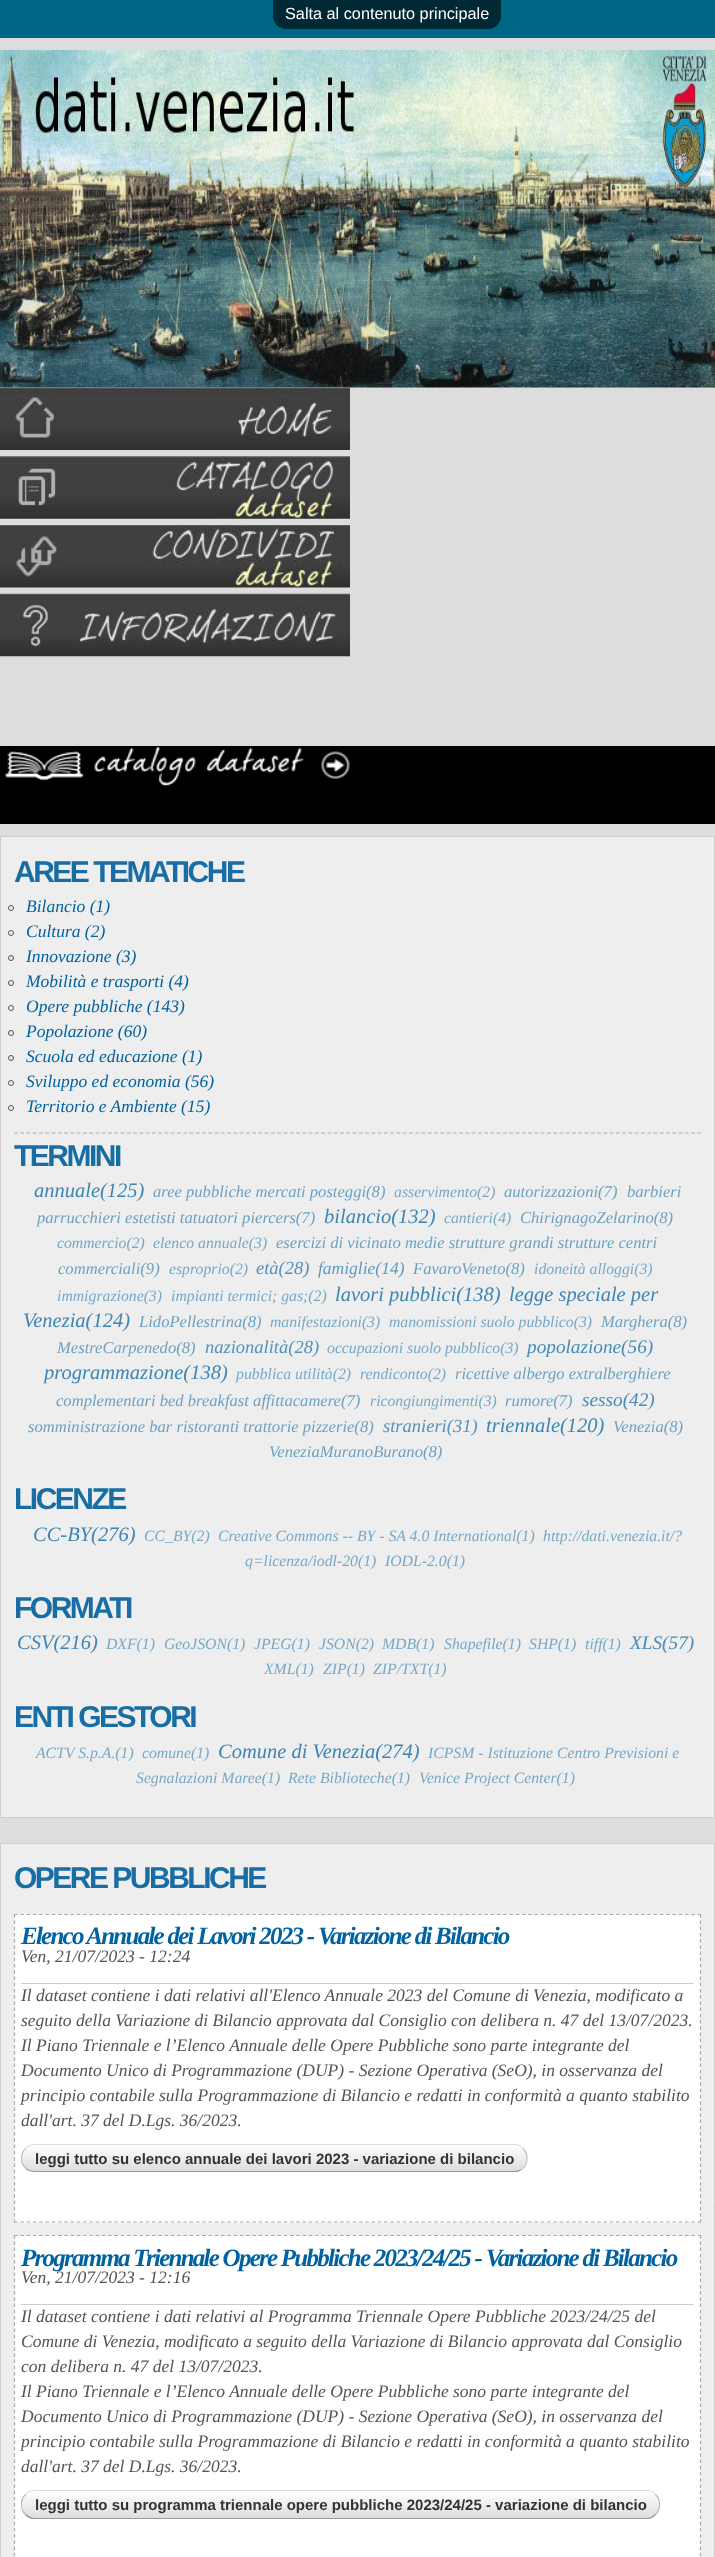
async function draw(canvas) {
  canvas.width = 715
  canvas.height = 2557
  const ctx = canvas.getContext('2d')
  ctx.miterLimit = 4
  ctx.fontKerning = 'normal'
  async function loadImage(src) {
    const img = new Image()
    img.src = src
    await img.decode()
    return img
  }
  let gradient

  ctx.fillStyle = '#ddd'
  ctx.fillRect(0, 0, 715, 2557)
  ctx.fillStyle = '#006685'
  ctx.fillRect(0, 0, 715, 38)
  ctx.fillStyle = '#002935'
  ctx.beginPath()
  ctx.roundRect(273, 0, 228, 29, [0, 0, 13, 13])
  ctx.fill()
  ctx.font = '16.25px Liberation Sans'
  ctx.fillStyle = '#fff'
  ctx.fillText('Salta al contenuto principale', 285, 19)
  ctx.drawImage(await loadImage('image0.png'), 0, 50, 715, 338)
  ctx.drawImage(await loadImage('image1.png'), 0, 387, 350, 63)
  ctx.drawImage(await loadImage('image2.png'), 0, 456, 350, 63)
  ctx.drawImage(await loadImage('image3.png'), 0, 525, 350, 63)
  ctx.drawImage(await loadImage('image4.png'), 0, 593, 350, 64)
  ctx.fillStyle = '#000'
  ctx.fillRect(0, 746, 715, 78)
  ctx.drawImage(await loadImage('image5.png'), 5, 746, 345, 41)
  ctx.fillStyle = '#eee'
  ctx.beginPath()
  ctx.rect(0.5, 836.5, 714, 981)
  ctx.fill()
  ctx.strokeStyle = '#ccc'
  ctx.stroke()
  ctx.beginPath()
  ctx.moveTo(14, 1133)
  ctx.lineTo(701, 1133)
  ctx.strokeStyle = '#aaa'
  ctx.lineWidth = 1.2
  ctx.setLineDash([3.75, 2.52])
  ctx.stroke()
  ctx.letterSpacing = '-2.5px'
  ctx.font = 'bold 30px Liberation Sans'
  ctx.fillStyle = '#186ea4'
  ctx.fillText('AREE TEMATICHE', 14, 882)
  ctx.beginPath()
  ctx.arc(11, 908, 2.5, 0, 2 * Math.PI)
  ctx.strokeStyle = '#545454'
  ctx.lineWidth = 1
  ctx.setLineDash([])
  ctx.stroke()
  ctx.letterSpacing = '0px'
  ctx.font = 'italic 17.5px Liberation Serif'
  ctx.fillStyle = '#0062a0'
  ctx.fillText('Bilancio (1)', 26, 912)
  ctx.beginPath()
  ctx.arc(11, 933, 2.5, 0, 2 * Math.PI)
  ctx.stroke()
  ctx.fillText('Cultura (2)', 26, 937)
  ctx.beginPath()
  ctx.arc(11, 958, 2.5, 0, 2 * Math.PI)
  ctx.stroke()
  ctx.fillText('Innovazione (3)', 26, 962)
  ctx.beginPath()
  ctx.arc(11, 983, 2.5, 0, 2 * Math.PI)
  ctx.stroke()
  ctx.fillText('Mobilità e trasporti (4)', 26, 987)
  ctx.beginPath()
  ctx.arc(11, 1008, 2.5, 0, 2 * Math.PI)
  ctx.stroke()
  ctx.fillText('Opere pubbliche (143)', 26, 1012)
  ctx.beginPath()
  ctx.arc(11, 1033, 2.5, 0, 2 * Math.PI)
  ctx.stroke()
  ctx.fillText('Popolazione (60)', 26, 1037)
  ctx.beginPath()
  ctx.arc(11, 1058, 2.5, 0, 2 * Math.PI)
  ctx.stroke()
  ctx.fillText('Scuola ed educazione (1)', 26, 1062)
  ctx.beginPath()
  ctx.arc(11, 1083, 2.5, 0, 2 * Math.PI)
  ctx.stroke()
  ctx.fillText('Sviluppo ed economia (56)', 26, 1087)
  ctx.beginPath()
  ctx.arc(11, 1108, 2.5, 0, 2 * Math.PI)
  ctx.stroke()
  ctx.fillText('Territorio e Ambiente (15)', 26, 1112)
  ctx.letterSpacing = '-2.5px'
  ctx.font = 'bold 30px Liberation Sans'
  ctx.fillStyle = '#186ea4'
  ctx.fillText('TERMINI', 14, 1166)
  ctx.letterSpacing = '0px'
  ctx.font = 'italic 20.5px Liberation Serif'
  ctx.fillStyle = '#3c85b4'
  ctx.fillText('annuale(125)', 34, 1197)
  ctx.font = 'italic 16.6px Liberation Serif'
  ctx.fillStyle = '#6ba1c3'
  ctx.fillText('aree pubbliche mercati posteggi(8)', 153, 1197)
  ctx.font = 'italic 15.75px Liberation Serif'
  ctx.fillStyle = '#77a8c7'
  ctx.fillText('asservimento(2)', 394, 1197)
  ctx.font = 'italic 16.6px Liberation Serif'
  ctx.fillStyle = '#6ba1c3'
  ctx.fillText('autorizzazioni(7)', 504, 1197)
  ctx.fillText('barbieri', 627, 1197)
  ctx.fillText('parrucchieri estetisti tatuatori piercers(7)', 37, 1223)
  ctx.font = 'italic 20.5px Liberation Serif'
  ctx.fillStyle = '#3c85b4'
  ctx.fillText('bilancio(132)', 324, 1223)
  ctx.font = 'italic 15.75px Liberation Serif'
  ctx.fillStyle = '#77a8c7'
  ctx.fillText('cantieri(4)', 444, 1223)
  ctx.font = 'italic 16.6px Liberation Serif'
  ctx.fillStyle = '#6ba1c3'
  ctx.fillText('ChirignagoZelarino(8)', 520, 1223)
  ctx.font = 'italic 15.75px Liberation Serif'
  ctx.fillStyle = '#77a8c7'
  ctx.fillText('commercio(2)', 57, 1248)
  ctx.fillText('elenco annuale(3)', 153, 1248)
  ctx.font = 'italic 16.6px Liberation Serif'
  ctx.fillStyle = '#6ba1c3'
  ctx.fillText('esercizi di vicinato medie strutture grandi strutture centri', 276, 1248)
  ctx.fillText('commerciali(9)', 58, 1274)
  ctx.font = 'italic 15.75px Liberation Serif'
  ctx.fillStyle = '#77a8c7'
  ctx.fillText('esproprio(2)', 169, 1274)
  ctx.font = 'italic 18.5px Liberation Serif'
  ctx.fillStyle = '#5393bb'
  ctx.fillText('età(28)', 256, 1274)
  ctx.font = 'italic 17.5px Liberation Serif'
  ctx.fillStyle = '#5f9abf'
  ctx.fillText('famiglie(14)', 318, 1274)
  ctx.font = 'italic 16.6px Liberation Serif'
  ctx.fillStyle = '#6ba1c3'
  ctx.fillText('FavaroVeneto(8)', 413, 1274)
  ctx.font = 'italic 15.75px Liberation Serif'
  ctx.fillStyle = '#77a8c7'
  ctx.fillText('idoneità alloggi(3)', 534, 1274)
  ctx.fillText('immigrazione(3)', 57, 1301)
  ctx.fillText('impianti termici; gas;(2)', 171, 1301)
  ctx.font = 'italic 20.5px Liberation Serif'
  ctx.fillStyle = '#3c85b4'
  ctx.fillText('lavori pubblici(138)', 335, 1301)
  ctx.fillText('legge speciale per', 509, 1301)
  ctx.fillText('Venezia(124)', 23, 1327)
  ctx.font = 'italic 16.6px Liberation Serif'
  ctx.fillStyle = '#6ba1c3'
  ctx.fillText('LidoPellestrina(8)', 139, 1327)
  ctx.font = 'italic 15.75px Liberation Serif'
  ctx.fillStyle = '#77a8c7'
  ctx.fillText('manifestazioni(3)', 270, 1327)
  ctx.fillText('manomissioni suolo pubblico(3)', 389, 1327)
  ctx.font = 'italic 16.6px Liberation Serif'
  ctx.fillStyle = '#6ba1c3'
  ctx.fillText('Marghera(8)', 601, 1327)
  ctx.fillText('MestreCarpenedo(8)', 57, 1353)
  ctx.font = 'italic 18.5px Liberation Serif'
  ctx.fillStyle = '#5393bb'
  ctx.fillText('nazionalità(28)', 205, 1353)
  ctx.font = 'italic 15.75px Liberation Serif'
  ctx.fillStyle = '#77a8c7'
  ctx.fillText('occupazioni suolo pubblico(3)', 327, 1353)
  ctx.font = 'italic 19.25px Liberation Serif'
  ctx.fillStyle = '#478cb7'
  ctx.fillText('popolazione(56)', 527, 1353)
  ctx.font = 'italic 20.5px Liberation Serif'
  ctx.fillStyle = '#3c85b4'
  ctx.fillText('programmazione(138)', 44, 1379)
  ctx.font = 'italic 15.75px Liberation Serif'
  ctx.fillStyle = '#77a8c7'
  ctx.fillText('pubblica utilità(2)', 236, 1379)
  ctx.fillText('rendiconto(2)', 360, 1379)
  ctx.font = 'italic 16.6px Liberation Serif'
  ctx.fillStyle = '#6ba1c3'
  ctx.fillText('ricettive albergo extralberghiere', 455, 1379)
  ctx.fillText('complementari bed breakfast affittacamere(7)', 56, 1406)
  ctx.font = 'italic 15.75px Liberation Serif'
  ctx.fillStyle = '#77a8c7'
  ctx.fillText('ricongiungimenti(3)', 370, 1406)
  ctx.font = 'italic 16.6px Liberation Serif'
  ctx.fillStyle = '#6ba1c3'
  ctx.fillText('rumore(7)', 505, 1406)
  ctx.font = 'italic 19.25px Liberation Serif'
  ctx.fillStyle = '#478cb7'
  ctx.fillText('sesso(42)', 582, 1406)
  ctx.font = 'italic 16.6px Liberation Serif'
  ctx.fillStyle = '#6ba1c3'
  ctx.fillText('somministrazione bar ristoranti trattorie pizzerie(8)', 28, 1432)
  ctx.font = 'italic 18.5px Liberation Serif'
  ctx.fillStyle = '#5393bb'
  ctx.fillText('stranieri(31)', 383, 1432)
  ctx.font = 'italic 20.5px Liberation Serif'
  ctx.fillStyle = '#3c85b4'
  ctx.fillText('triennale(120)', 486, 1432)
  ctx.font = 'italic 16.6px Liberation Serif'
  ctx.fillStyle = '#6ba1c3'
  ctx.fillText('Venezia(8)', 613, 1432)
  ctx.fillText('VeneziaMuranoBurano(8)', 269, 1457)
  ctx.letterSpacing = '-2.5px'
  ctx.font = 'bold 30px Liberation Sans'
  ctx.fillStyle = '#186ea4'
  ctx.fillText('LICENZE', 14, 1509)
  ctx.letterSpacing = '0px'
  ctx.font = 'italic 20.5px Liberation Serif'
  ctx.fillStyle = '#3c85b4'
  ctx.fillText('CC-BY(276)', 33, 1541)
  ctx.font = 'italic 15.75px Liberation Serif'
  ctx.fillStyle = '#77a8c7'
  ctx.fillText('CC_BY(2)', 144, 1541)
  ctx.fillText('Creative Commons -- BY - SA 4.0 International(1)', 218, 1541)
  ctx.fillText('http://dati.venezia.it/?', 543, 1541)
  ctx.fillText('q=licenza/iodl-20(1)', 245, 1566)
  ctx.fillText('IODL-2.0(1)', 385, 1566)
  ctx.letterSpacing = '-2.5px'
  ctx.font = 'bold 30px Liberation Sans'
  ctx.fillStyle = '#186ea4'
  ctx.fillText('FORMATI', 14, 1618)
  ctx.letterSpacing = '0px'
  ctx.font = 'italic 20.5px Liberation Serif'
  ctx.fillStyle = '#3c85b4'
  ctx.fillText('CSV(216)', 17, 1649)
  ctx.font = 'italic 15.75px Liberation Serif'
  ctx.fillStyle = '#77a8c7'
  ctx.fillText('DXF(1)', 106, 1649)
  ctx.fillText('GeoJSON(1)', 164, 1649)
  ctx.fillText('JPEG(1)', 254, 1649)
  ctx.fillText('JSON(2)', 319, 1649)
  ctx.fillText('MDB(1)', 382, 1649)
  ctx.fillText('Shapefile(1)', 444, 1649)
  ctx.fillText('SHP(1)', 529, 1649)
  ctx.fillText('tiff(1)', 585, 1649)
  ctx.font = 'italic 19.25px Liberation Serif'
  ctx.fillStyle = '#478cb7'
  ctx.fillText('XLS(57)', 630, 1649)
  ctx.font = 'italic 15.75px Liberation Serif'
  ctx.fillStyle = '#77a8c7'
  ctx.fillText('XML(1)', 264, 1674)
  ctx.fillText('ZIP(1)', 323, 1674)
  ctx.fillText('ZIP/TXT(1)', 373, 1674)
  ctx.letterSpacing = '-2.5px'
  ctx.font = 'bold 30px Liberation Sans'
  ctx.fillStyle = '#186ea4'
  ctx.fillText('ENTI GESTORI', 14, 1727)
  ctx.letterSpacing = '0px'
  ctx.font = 'italic 15.75px Liberation Serif'
  ctx.fillStyle = '#77a8c7'
  ctx.fillText('ACTV S.p.A.(1)', 36, 1758)
  ctx.fillText('comune(1)', 142, 1758)
  ctx.font = 'italic 20.5px Liberation Serif'
  ctx.fillStyle = '#3c85b4'
  ctx.fillText('Comune di Venezia(274)', 218, 1758)
  ctx.font = 'italic 15.75px Liberation Serif'
  ctx.fillStyle = '#77a8c7'
  ctx.fillText('ICPSM - Istituzione Centro Previsioni e', 428, 1758)
  ctx.fillText('Segnalazioni Maree(1)', 136, 1783)
  ctx.fillText('Rete Biblioteche(1)', 288, 1783)
  ctx.fillText('Venice Project Center(1)', 419, 1783)
  ctx.fillStyle = '#eee'
  ctx.beginPath()
  ctx.rect(0.5, 1843.5, 714, 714)
  ctx.fill()
  ctx.strokeStyle = '#ccc'
  ctx.stroke()
  ctx.letterSpacing = '-2.5px'
  ctx.font = 'bold 30px Liberation Sans'
  ctx.fillStyle = '#186ea4'
  ctx.fillText('OPERE PUBBLICHE', 14, 1888)
  ctx.fillStyle = '#fff'
  ctx.fillRect(14, 1914, 687, 309)
  ctx.beginPath()
  ctx.moveTo(14, 1914.5)
  ctx.lineTo(701, 1914.5)
  ctx.strokeStyle = '#aaa'
  ctx.lineWidth = 1.2
  ctx.setLineDash([3.75, 2.52])
  ctx.stroke()
  ctx.beginPath()
  ctx.moveTo(700.5, 1914)
  ctx.lineTo(700.5, 2222.5)
  ctx.setLineDash([3.75, 2.48])
  ctx.stroke()
  ctx.beginPath()
  ctx.moveTo(14, 2222)
  ctx.lineTo(701, 2222)
  ctx.setLineDash([3.75, 2.52])
  ctx.stroke()
  ctx.beginPath()
  ctx.moveTo(14.5, 1914)
  ctx.lineTo(14.5, 2222.5)
  ctx.setLineDash([3.75, 2.48])
  ctx.stroke()
  ctx.letterSpacing = '-1.75px'
  ctx.font = 'italic bold 25px Liberation Serif'
  ctx.fillStyle = '#0062a0'
  ctx.fillText('Elenco Annuale dei Lavori 2023 - Variazione di Bilancio', 21, 1944)
  ctx.letterSpacing = '0px'
  ctx.font = 'italic 17.5px Liberation Serif'
  ctx.fillStyle = '#545454'
  ctx.fillText('Ven, 21/07/2023 - 12:24', 21, 1962)
  ctx.fillStyle = '#ccc'
  ctx.fillRect(21, 1983, 673, 1)
  ctx.fillStyle = '#545454'
  ctx.fillText('Il dataset contiene i dati relativi all\'Elenco Annuale 2023 del Comune di Venezia, modificato a', 21, 2001)
  ctx.fillText('seguito della Variazione di Bilancio approvata dal Consiglio con delibera n. 47 del 13/07/2023.', 21, 2026)
  ctx.fillText('Il Piano Triennale e l’Elenco Annuale delle Opere Pubbliche sono parte integrante del', 21, 2051)
  ctx.fillText('Documento Unico di Programmazione (DUP) - Sezione Operativa (SeO), in osservanza del', 21, 2076)
  ctx.fillText('principio contabile sulla Programmazione di Bilancio e redatti in conformità a quanto stabilito', 21, 2101)
  ctx.fillText('dall\'art. 37 del D.Lgs. 36/2023.', 21, 2126)
  ctx.save()
  ctx.beginPath()
  ctx.roundRect(21, 2144, 87, 29, [14, 0, 0, 14])
  ctx.clip()
  gradient = ctx.createLinearGradient(23, 2145, 23, 2171)
  gradient.addColorStop(0, '#fff')
  gradient.addColorStop(1, '#ddd')
  ctx.fillStyle = gradient
  ctx.fillRect(21, 2145, 87, 26)
  ctx.restore()
  ctx.save()
  ctx.beginPath()
  ctx.roundRect(108, 2144, 420, 29, [0, 14, 14, 0])
  ctx.clip()
  gradient = ctx.createLinearGradient(108, 2145, 108, 2171)
  gradient.addColorStop(0, '#fff')
  gradient.addColorStop(1, '#ddd')
  ctx.fillStyle = gradient
  ctx.fillRect(108, 2145, 420, 26)
  ctx.restore()
  ctx.font = 'bold 15px Liberation Sans'
  ctx.fillStyle = '#333'
  ctx.fillText('leggi tutto su elenco annuale dei lavori 2023 - variazione di bilancio', 35, 2164)
  ctx.fillStyle = '#ddd'
  ctx.beginPath()
  ctx.moveTo(35, 2144)
  ctx.lineTo(108, 2144)
  ctx.lineTo(108, 2145)
  ctx.lineTo(35, 2145)
  ctx.bezierCurveTo(32, 2145, 28, 2146, 26, 2149)
  ctx.lineTo(25, 2148)
  ctx.bezierCurveTo(28, 2145, 31, 2144, 35, 2144)
  ctx.closePath()
  ctx.fill()
  ctx.fillStyle = '#999'
  ctx.beginPath()
  ctx.moveTo(108, 2172)
  ctx.lineTo(35, 2172)
  ctx.bezierCurveTo(31, 2172, 28, 2171, 25, 2168)
  ctx.lineTo(26, 2168)
  ctx.bezierCurveTo(28, 2170, 32, 2171, 35, 2171)
  ctx.lineTo(108, 2171)
  ctx.closePath()
  ctx.fill()
  ctx.fillStyle = '#bbb'
  ctx.beginPath()
  ctx.moveTo(26, 2167.5)
  ctx.lineTo(25.5, 2168.5)
  ctx.bezierCurveTo(19.5, 2163.5, 19.5, 2153, 25.5, 2148)
  ctx.lineTo(26, 2148.5)
  ctx.bezierCurveTo(21, 2153.5, 20.5, 2163, 26, 2167.5)
  ctx.closePath()
  ctx.fill()
  ctx.save()
  ctx.beginPath()
  ctx.roundRect(108, 2144, 420, 29, [0, 14, 14, 0])
  ctx.clip()
  gradient = ctx.createLinearGradient(108, 2119, 108, 2145)
  gradient.addColorStop(0, '#fff')
  gradient.addColorStop(1, '#ddd')
  ctx.fillStyle = gradient
  ctx.fillRect(514, 2144, 5, 1)
  ctx.restore()
  ctx.fillStyle = '#ddd'
  ctx.beginPath()
  ctx.moveTo(108, 2144)
  ctx.lineTo(514, 2144)
  ctx.bezierCurveTo(518, 2144, 521, 2146, 523, 2148)
  ctx.lineTo(523, 2149)
  ctx.bezierCurveTo(521, 2147, 519, 2146, 516, 2145)
  ctx.lineTo(108, 2145)
  ctx.closePath()
  ctx.fill()
  ctx.fillStyle = '#bbb'
  ctx.beginPath()
  ctx.moveTo(523.5, 2148)
  ctx.bezierCurveTo(529, 2153.5, 528.5, 2162.5, 523.5, 2168.5)
  ctx.lineTo(523, 2168)
  ctx.bezierCurveTo(528, 2163, 527.5, 2154, 522.5, 2148.5)
  ctx.closePath()
  ctx.fill()
  ctx.fillStyle = '#999'
  ctx.beginPath()
  ctx.moveTo(523, 2168)
  ctx.bezierCurveTo(520, 2170, 517, 2171, 514, 2171)
  ctx.lineTo(108, 2171)
  ctx.lineTo(108, 2172)
  ctx.lineTo(517, 2172)
  ctx.bezierCurveTo(519, 2172, 521, 2170, 523, 2168)
  ctx.closePath()
  ctx.fill()
  ctx.fillStyle = '#fff'
  ctx.fillRect(14, 2235, 687, 322)
  ctx.beginPath()
  ctx.moveTo(14, 2235.5)
  ctx.lineTo(701, 2235.5)
  ctx.setLineDash([3.75, 2.52])
  ctx.stroke()
  ctx.beginPath()
  ctx.moveTo(700.5, 2235)
  ctx.lineTo(700.5, 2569)
  ctx.setLineDash([3.75, 2.48])
  ctx.stroke()
  ctx.beginPath()
  ctx.moveTo(14.5, 2235)
  ctx.lineTo(14.5, 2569)
  ctx.stroke()
  ctx.letterSpacing = '-1.75px'
  ctx.font = 'italic bold 25px Liberation Serif'
  ctx.fillStyle = '#0062a0'
  ctx.fillText('Programma Triennale Opere Pubbliche 2023/24/25 - Variazione di Bilancio', 21, 2266)
  ctx.letterSpacing = '0px'
  ctx.font = 'italic 17.5px Liberation Serif'
  ctx.fillStyle = '#545454'
  ctx.fillText('Ven, 21/07/2023 - 12:16', 21, 2283)
  ctx.fillStyle = '#ccc'
  ctx.fillRect(21, 2304, 673, 1)
  ctx.fillStyle = '#545454'
  ctx.fillText('Il dataset contiene i dati relativi al Programma Triennale Opere Pubbliche 2023/24/25 del', 21, 2322)
  ctx.fillText('Comune di Venezia, modificato a seguito della Variazione di Bilancio approvata dal Consiglio', 21, 2347)
  ctx.fillText('con delibera n. 47 del 13/07/2023.', 21, 2372)
  ctx.fillText('Il Piano Triennale e l’Elenco Annuale delle Opere Pubbliche sono parte integrante del', 21, 2397)
  ctx.fillText('Documento Unico di Programmazione (DUP) - Sezione Operativa (SeO), in osservanza del', 21, 2422)
  ctx.fillText('principio contabile sulla Programmazione di Bilancio e redatti in conformità a quanto stabilito', 21, 2447)
  ctx.fillText('dall\'art. 37 del D.Lgs. 36/2023.', 21, 2472)
  ctx.save()
  ctx.beginPath()
  ctx.roundRect(21, 2490, 87, 29, [14, 0, 0, 14])
  ctx.clip()
  gradient = ctx.createLinearGradient(23, 2491, 23, 2518)
  gradient.addColorStop(0, '#fff')
  gradient.addColorStop(1, '#ddd')
  ctx.fillStyle = gradient
  ctx.fillRect(21, 2491, 87, 27)
  ctx.restore()
  ctx.save()
  ctx.beginPath()
  ctx.roundRect(108, 2490, 552, 29, [0, 14, 14, 0])
  ctx.clip()
  gradient = ctx.createLinearGradient(108, 2491, 108, 2518)
  gradient.addColorStop(0, '#fff')
  gradient.addColorStop(1, '#ddd')
  ctx.fillStyle = gradient
  ctx.fillRect(108, 2491, 552, 27)
  ctx.restore()
  ctx.font = 'bold 15px Liberation Sans'
  ctx.fillStyle = '#333'
  ctx.fillText('leggi tutto su programma triennale opere pubbliche 2023/24/25 - variazione di bilancio', 35, 2510)
  ctx.fillStyle = '#ddd'
  ctx.beginPath()
  ctx.moveTo(35, 2490)
  ctx.bezierCurveTo(31, 2490, 28, 2491, 25, 2494)
  ctx.lineTo(26, 2495)
  ctx.bezierCurveTo(28, 2492, 32, 2491, 35, 2491)
  ctx.lineTo(108, 2491)
  ctx.lineTo(108, 2490)
  ctx.closePath()
  ctx.fill()
  ctx.fillStyle = '#999'
  ctx.beginPath()
  ctx.moveTo(108, 2519)
  ctx.lineTo(32, 2519)
  ctx.bezierCurveTo(29, 2518, 27, 2517, 25, 2515)
  ctx.lineTo(26, 2514)
  ctx.bezierCurveTo(28, 2516, 32, 2518, 35, 2518)
  ctx.lineTo(108, 2518)
  ctx.closePath()
  ctx.fill()
  ctx.fillStyle = '#bbb'
  ctx.beginPath()
  ctx.moveTo(21, 2501)
  ctx.bezierCurveTo(22, 2498.5, 23, 2496, 25, 2494)
  ctx.lineTo(26, 2495)
  ctx.bezierCurveTo(20.5, 2500, 20.5, 2509, 26, 2514)
  ctx.lineTo(25, 2515)
  ctx.bezierCurveTo(21, 2511, 21, 2506.5, 21, 2501)
  ctx.closePath()
  ctx.fill()
  ctx.fillStyle = '#ddd'
  ctx.beginPath()
  ctx.moveTo(108, 2490)
  ctx.lineTo(646, 2490)
  ctx.bezierCurveTo(650, 2490, 654, 2492, 656, 2494)
  ctx.lineTo(655, 2495)
  ctx.bezierCurveTo(653, 2492, 650, 2491, 646, 2491)
  ctx.lineTo(108, 2491)
  ctx.closePath()
  ctx.fill()
  ctx.fillStyle = '#bbb'
  ctx.beginPath()
  ctx.moveTo(655, 2514)
  ctx.bezierCurveTo(660.5, 2509, 660.5, 2500, 655, 2495)
  ctx.lineTo(656, 2494)
  ctx.bezierCurveTo(661.5, 2499.5, 661.5, 2509.5, 656, 2515)
  ctx.closePath()
  ctx.fill()
  ctx.fillStyle = '#999'
  ctx.beginPath()
  ctx.moveTo(649, 2519)
  ctx.lineTo(108, 2519)
  ctx.lineTo(108, 2518)
  ctx.lineTo(646, 2518)
  ctx.bezierCurveTo(650, 2518, 653, 2516, 655, 2514)
  ctx.lineTo(656, 2515)
  ctx.bezierCurveTo(654, 2517, 652, 2518, 649, 2519)
  ctx.closePath()
  ctx.fill()
}

draw(document.querySelector('canvas'))
